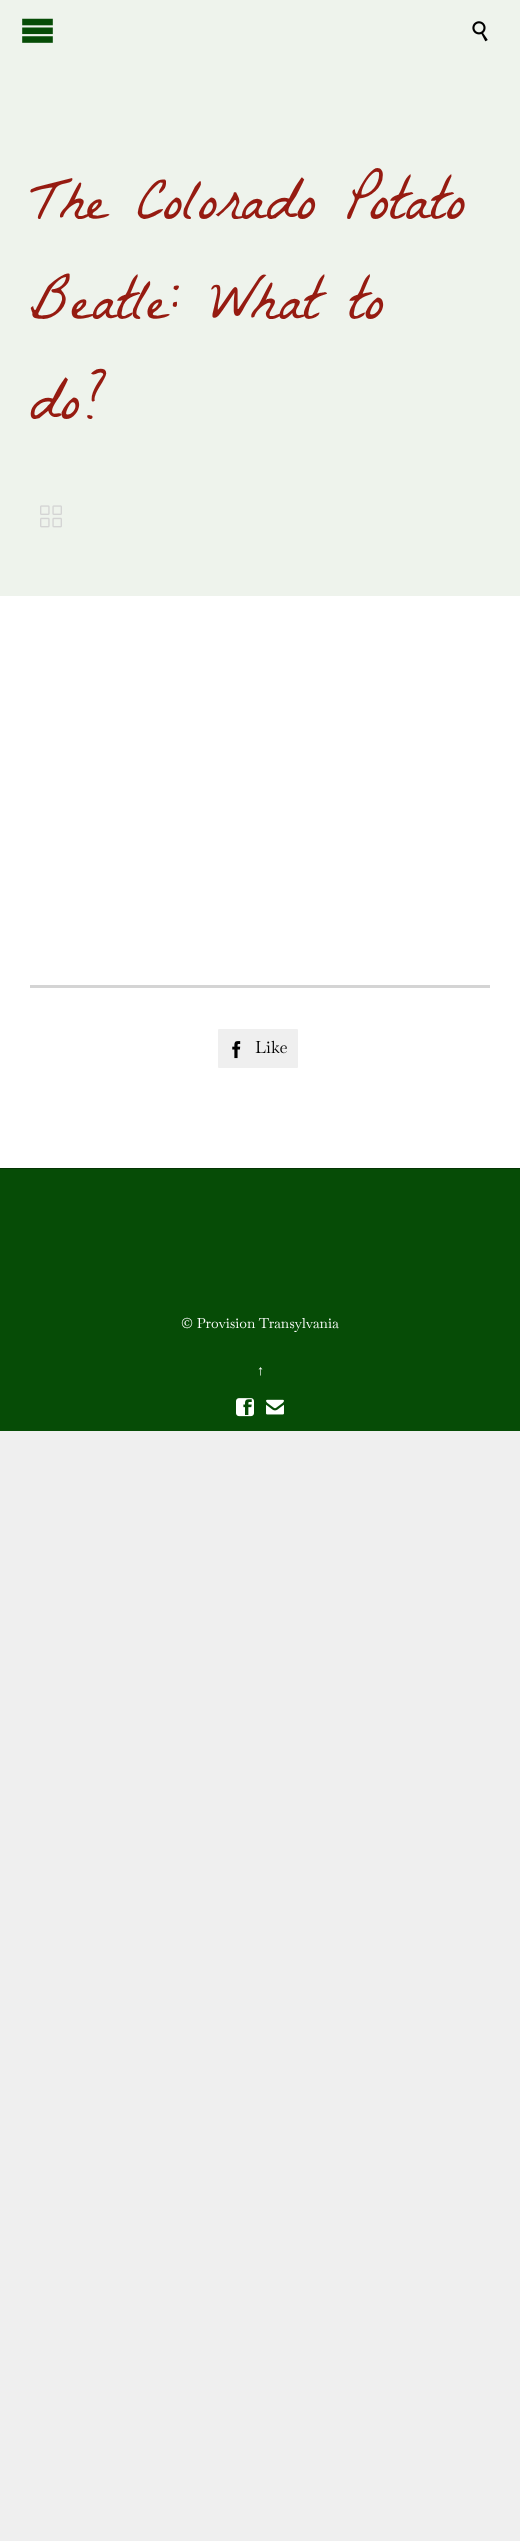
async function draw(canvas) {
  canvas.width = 520
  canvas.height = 2541
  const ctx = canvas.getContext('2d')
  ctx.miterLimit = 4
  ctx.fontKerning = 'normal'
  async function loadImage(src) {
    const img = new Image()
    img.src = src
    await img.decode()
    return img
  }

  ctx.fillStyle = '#efefef'
  ctx.fillRect(0, 0, 520, 2541)
  ctx.fillStyle = '#eef3ec'
  ctx.fillRect(0, 0, 520, 596)
  ctx.drawImage(await loadImage('image0.png'), 22, 18, 31, 25)
  ctx.drawImage(await loadImage('image1.png'), 472, 21, 16, 21)
  ctx.font = '60px La Belle Aurore'
  ctx.fillStyle = '#961b11'
  ctx.fillText('The Colorado Potato', 30, 219)
  ctx.fillText('Beatle: What to', 30, 319)
  ctx.fillText('do?', 30, 419)
  ctx.drawImage(await loadImage('image2.png'), 40, 505, 22, 23)
  ctx.fillStyle = '#fff'
  ctx.fillRect(0, 596, 520, 572)
  ctx.fillStyle = '#d4d4d4'
  ctx.fillRect(30, 985, 460, 3)
  ctx.fillStyle = '#efefef'
  ctx.beginPath()
  ctx.roundRect(218, 1029, 80, 39, 1)
  ctx.fill()
  ctx.drawImage(await loadImage('image3.png'), 232, 1041, 9, 18)
  ctx.font = '17px Baskervville'
  ctx.fillStyle = '#000'
  ctx.fillText('Like', 255, 1053)
  ctx.fillStyle = '#064c06'
  ctx.fillRect(0, 1169, 520, 262)
  ctx.fillStyle = '#043404'
  ctx.fillRect(0, 1168, 520, 1)
  ctx.font = '14px Baskervville'
  ctx.fillStyle = '#fff'
  ctx.fillText('© Provision Transylvania', 181, 1328)
  ctx.font = '14px Liberation Serif'
  ctx.fillText('↑', 257, 1375)
  ctx.drawImage(await loadImage('image4.png'), 236, 1398, 18, 19)
  ctx.drawImage(await loadImage('image5.png'), 266, 1399, 18, 16)
}

draw(document.querySelector('canvas'))
